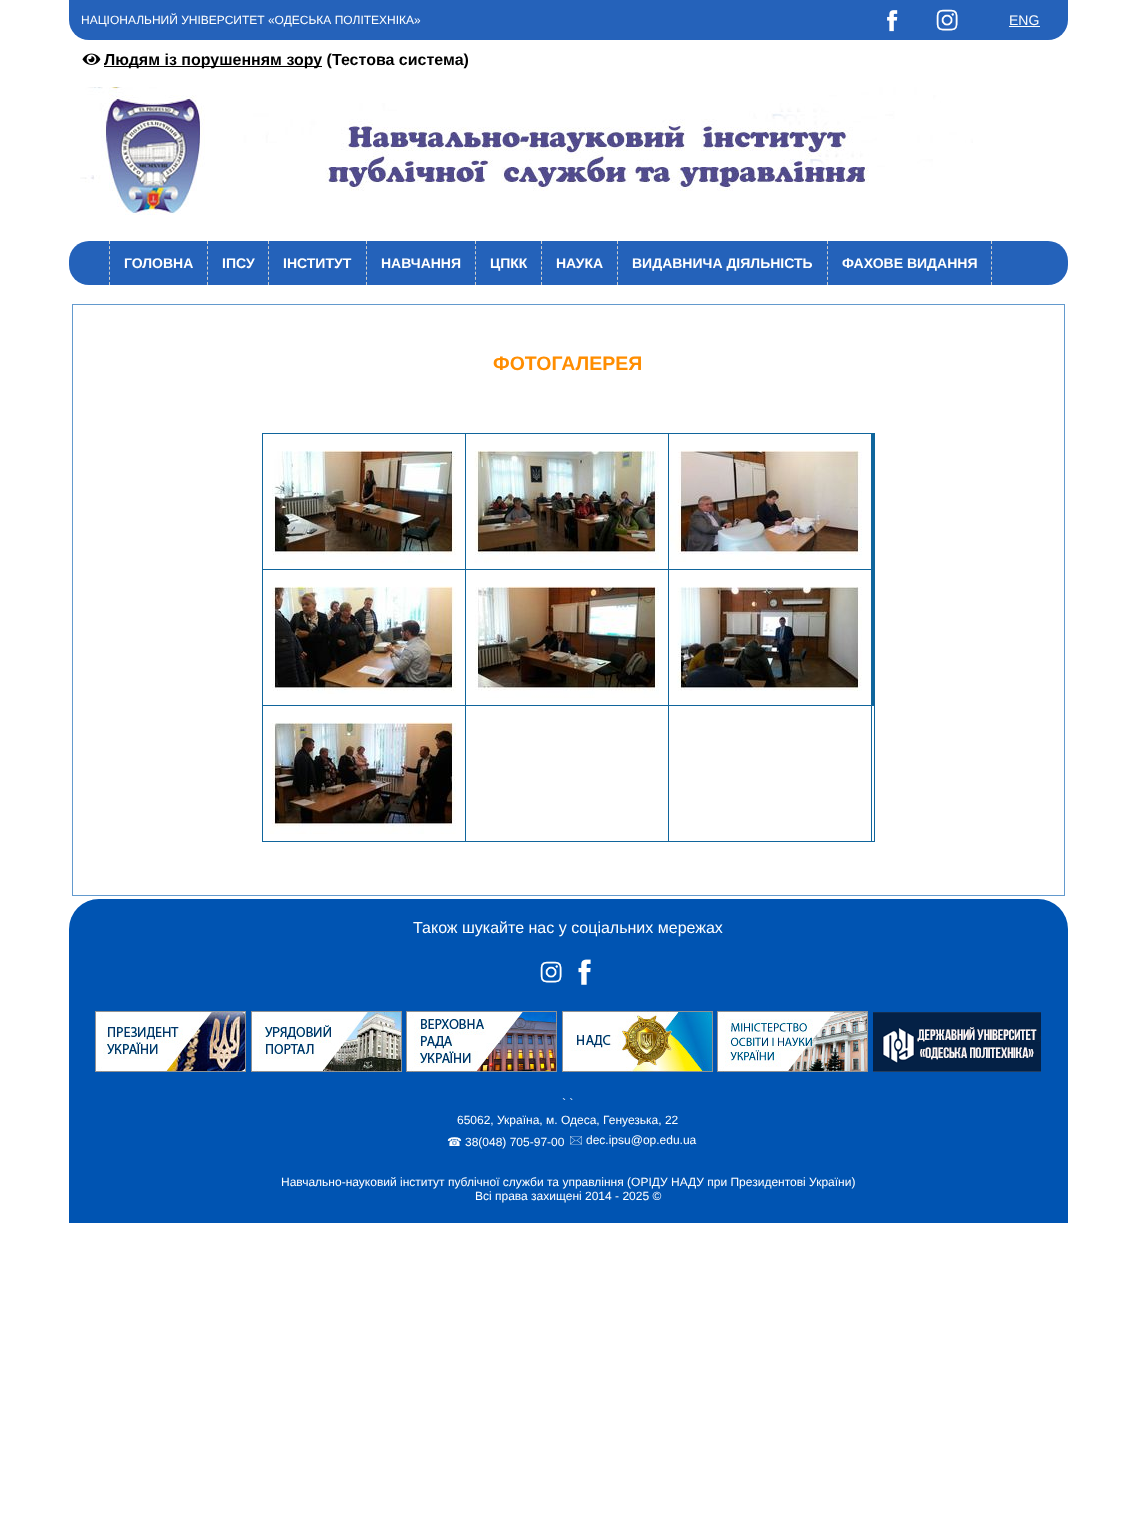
async function draw(canvas) {
  canvas.width = 1136
  canvas.height = 1540
  const ctx = canvas.getContext('2d')
  ctx.miterLimit = 4
  ctx.fontKerning = 'normal'
  async function loadImage(src) {
    const img = new Image()
    img.src = src
    await img.decode()
    return img
  }

  ctx.fillStyle = '#fff'
  ctx.fillRect(0, 0, 1136, 1540)
  ctx.fillStyle = '#2562ba'
  ctx.beginPath()
  ctx.roundRect(69, 0, 999, 40, [0, 0, 20, 20])
  ctx.fill()
  ctx.font = '12px Liberation Sans'
  ctx.fillStyle = '#fff'
  ctx.fillText('НАЦІОНАЛЬНИЙ УНІВЕРСИТЕТ «ОДЕСЬКА ПОЛІТЕХНІКА»', 81, 24)
  ctx.drawImage(await loadImage('image0.png'), 887, 10, 11, 22)
  ctx.drawImage(await loadImage('image1.png'), 936, 9, 22, 22)
  ctx.font = '14px Liberation Sans'
  ctx.fillText('ENG', 1009, 25)
  ctx.fillRect(1009, 26, 31, 1)
  ctx.drawImage(await loadImage('image2.png'), 82, 53, 19, 12)
  ctx.fillStyle = '#000'
  ctx.fillRect(104, 66, 218, 1)
  ctx.font = 'bold 16px Liberation Sans'
  ctx.fillText('Людям із порушенням зору (Тестова система)', 104, 65)
  ctx.drawImage(await loadImage('image3.png'), 80, 87, 893, 128)
  ctx.fillStyle = '#2462ba'
  ctx.beginPath()
  ctx.roundRect(69, 241, 999, 44, 20)
  ctx.fill()
  ctx.beginPath()
  ctx.moveTo(207.5, 241)
  ctx.lineTo(207.5, 285)
  ctx.strokeStyle = '#ccc'
  ctx.setLineDash([3, 2.12])
  ctx.stroke()
  ctx.beginPath()
  ctx.moveTo(109.5, 241)
  ctx.lineTo(109.5, 285)
  ctx.stroke()
  ctx.font = 'bold 14px Liberation Sans'
  ctx.fillStyle = '#fff'
  ctx.fillText('ГОЛОВНА', 124, 268)
  ctx.beginPath()
  ctx.moveTo(268.5, 241)
  ctx.lineTo(268.5, 285)
  ctx.stroke()
  ctx.fillText('ІПСУ', 222, 268)
  ctx.beginPath()
  ctx.moveTo(366.5, 241)
  ctx.lineTo(366.5, 285)
  ctx.stroke()
  ctx.fillText('ІНСТИТУТ', 283, 268)
  ctx.beginPath()
  ctx.moveTo(475.5, 241)
  ctx.lineTo(475.5, 285)
  ctx.stroke()
  ctx.fillText('НАВЧАННЯ', 381, 268)
  ctx.beginPath()
  ctx.moveTo(541.5, 241)
  ctx.lineTo(541.5, 285)
  ctx.stroke()
  ctx.fillText('ЦПКК', 490, 268)
  ctx.beginPath()
  ctx.moveTo(617.5, 241)
  ctx.lineTo(617.5, 285)
  ctx.stroke()
  ctx.fillText('НАУКА', 556, 268)
  ctx.beginPath()
  ctx.moveTo(827.5, 241)
  ctx.lineTo(827.5, 285)
  ctx.stroke()
  ctx.fillText('ВИДАВНИЧА ДІЯЛЬНІСТЬ', 632, 268)
  ctx.beginPath()
  ctx.moveTo(991.5, 241)
  ctx.lineTo(991.5, 285)
  ctx.stroke()
  ctx.fillText('ФАХОВЕ ВИДАННЯ', 842, 268)
  ctx.strokeStyle = '#639ace'
  ctx.setLineDash([])
  ctx.strokeRect(72.5, 304.5, 992, 591)
  ctx.font = 'bold 19.5px Liberation Sans'
  ctx.fillStyle = '#ff8d00'
  ctx.fillText('ФОТОГАЛЕРЕЯ', 493, 370)
  ctx.fillStyle = '#10659c'
  ctx.fillRect(262, 433, 613, 409)
  ctx.fillStyle = '#fff'
  ctx.fillRect(263, 434, 202, 135)
  ctx.drawImage(await loadImage('image4.png'), 272, 450, 184, 113)
  ctx.fillRect(466, 434, 202, 135)
  ctx.drawImage(await loadImage('image5.png'), 474, 450, 185, 113)
  ctx.fillRect(669, 434, 202, 135)
  ctx.drawImage(await loadImage('image6.png'), 670, 450, 192, 112)
  ctx.fillRect(263, 570, 202, 135)
  ctx.drawImage(await loadImage('image7.png'), 272, 586, 184, 108)
  ctx.fillRect(466, 570, 202, 135)
  ctx.drawImage(await loadImage('image8.png'), 475, 586, 184, 112)
  ctx.fillRect(669, 570, 202, 135)
  ctx.drawImage(await loadImage('image9.png'), 677, 586, 185, 105)
  ctx.fillRect(263, 706, 202, 135)
  ctx.drawImage(await loadImage('image10.png'), 264, 722, 192, 112)
  ctx.fillRect(466, 706, 202, 135)
  ctx.fillRect(669, 706, 202, 135)
  ctx.fillRect(872, 706, 2, 135)
  ctx.fillStyle = '#0054b2'
  ctx.beginPath()
  ctx.roundRect(69, 899, 999, 324, [30, 30, 0, 0])
  ctx.fill()
  ctx.font = '16px Liberation Sans'
  ctx.fillStyle = '#fff'
  ctx.fillText('Також шукайте нас у соціальних мережах', 413, 933)
  ctx.drawImage(await loadImage('image11.png'), 540, 961, 22, 22)
  ctx.drawImage(await loadImage('image12.png'), 578, 959, 13, 26)
  ctx.drawImage(await loadImage('image13.png'), 95, 1011, 151, 61)
  ctx.drawImage(await loadImage('image14.png'), 251, 1011, 151, 61)
  ctx.drawImage(await loadImage('image15.png'), 406, 1011, 151, 61)
  ctx.drawImage(await loadImage('image16.png'), 562, 1011, 151, 61)
  ctx.drawImage(await loadImage('image17.png'), 717, 1011, 151, 61)
  ctx.drawImage(await loadImage('image18.png'), 873, 1012, 168, 60)
  ctx.font = '12px Liberation Sans'
  ctx.fillText('` `', 562, 1107)
  ctx.fillText('65062, Україна, м. Одеса, Генуезька, 22', 457, 1124)
  ctx.font = '12px DejaVu Sans'
  ctx.fillText('☎', 447, 1146)
  ctx.font = '12px Liberation Sans'
  ctx.fillText('38(048) 705-97-00', 465, 1146)
  ctx.font = '12px "Noto Sans Symbols 2"'
  ctx.fillText('🖂', 569, 1144)
  ctx.font = '12px Liberation Sans'
  ctx.fillText('dec.ipsu@op.edu.ua', 586, 1144)
  ctx.fillText('Навчально-науковий інститут публічної служби та управління (ОРІДУ НАДУ при Президентові України)', 281, 1186)
  ctx.fillText('Всі права захищені 2014 - 2025 ©', 475, 1200)
}

draw(document.querySelector('canvas'))
